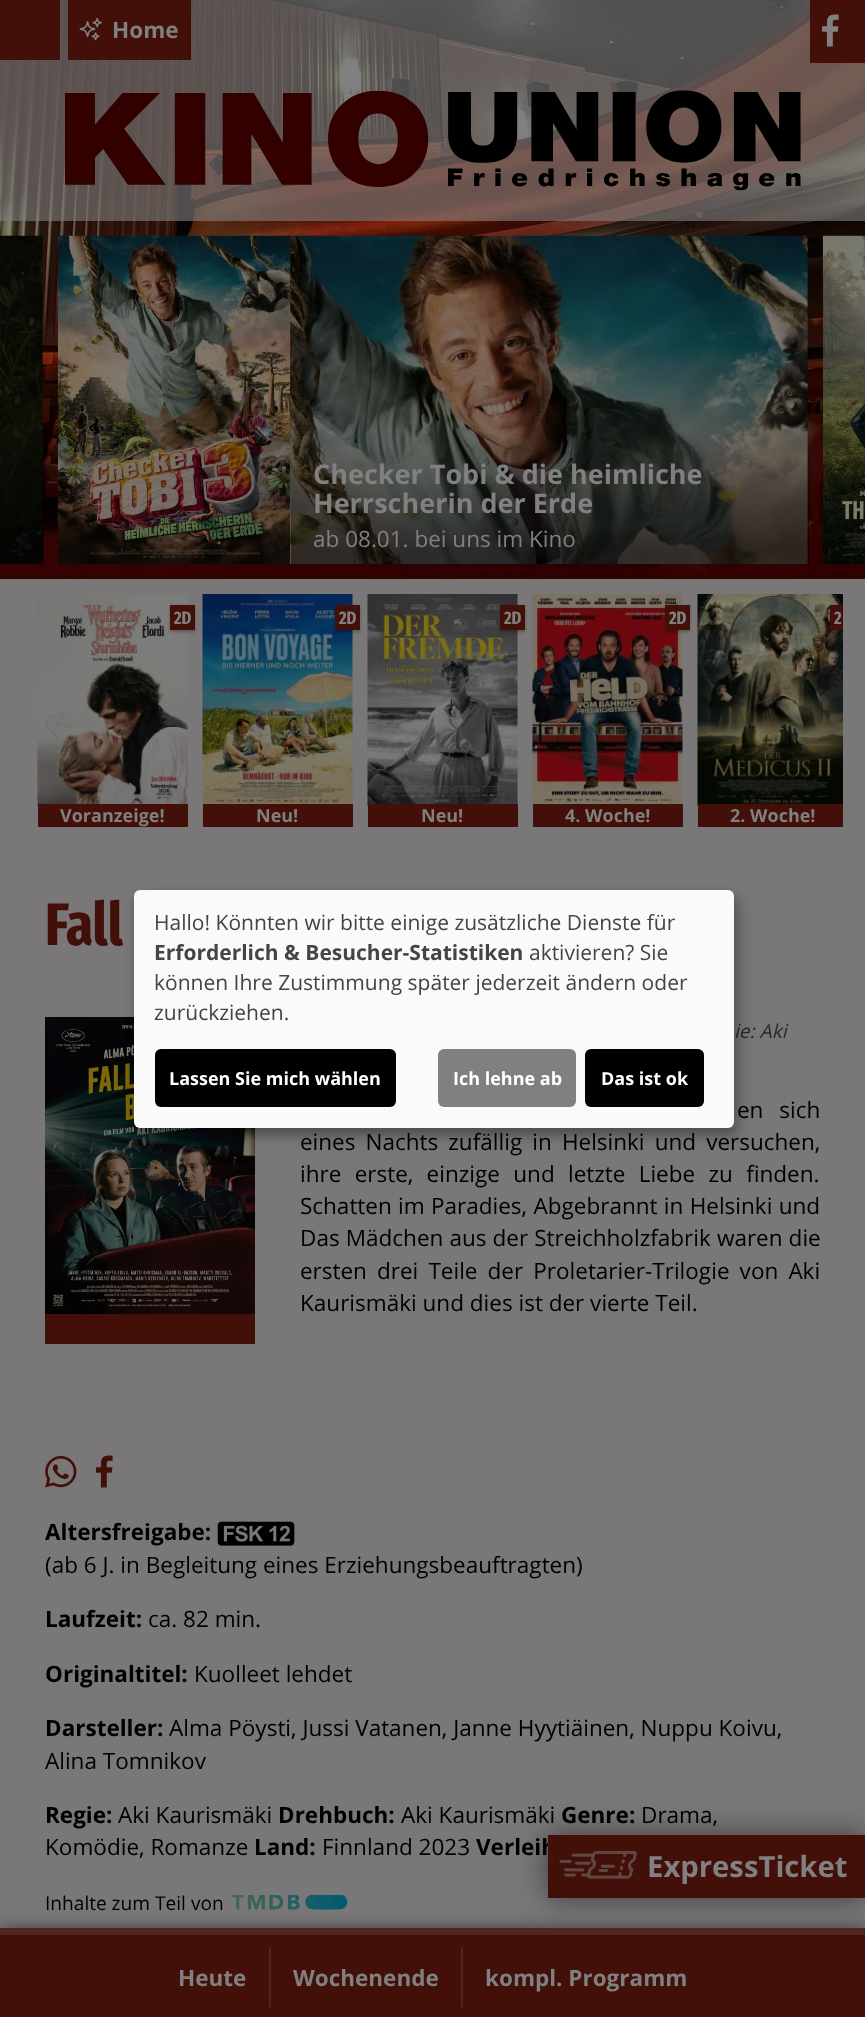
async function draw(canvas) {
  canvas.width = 865
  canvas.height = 2017
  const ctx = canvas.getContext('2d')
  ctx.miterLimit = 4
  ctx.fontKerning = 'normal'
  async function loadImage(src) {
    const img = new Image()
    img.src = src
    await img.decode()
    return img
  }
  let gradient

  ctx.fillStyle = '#300'
  ctx.fillRect(0, 0, 865, 2017)
  ctx.drawImage(await loadImage('image0.png'), 0, 0, 865, 606)
  ctx.fillStyle = '#80808099'
  ctx.fillRect(0, 0, 865, 221)
  ctx.fillStyle = '#430f09'
  ctx.fillRect(810, 0, 55, 63)
  ctx.font = '32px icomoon'
  ctx.fillStyle = '#808080'
  ctx.fillText(':', 822, 42)
  ctx.drawImage(await loadImage('image1.png'), 65, 90, 736, 101)
  ctx.fillStyle = '#430f09'
  ctx.fillRect(0, 0, 60, 60)
  ctx.fillRect(68, 0, 123, 60)
  ctx.drawImage(await loadImage('image2.png'), 79, 17, 23, 24)
  ctx.font = 'bold 22.5px Open Sans'
  ctx.fillStyle = '#808080'
  ctx.fillText('Home', 112, 38)
  ctx.drawImage(await loadImage('image3.png'), 0, 235, 43, 329)
  gradient = ctx.createLinearGradient(-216, 236, -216, 564)
  gradient.addColorStop(0.59, '#00000000')
  gradient.addColorStop(0.96, '#00000099')
  ctx.fillStyle = gradient
  ctx.fillRect(0, 449, 44, 115)
  ctx.drawImage(await loadImage('image4.png'), 57, 235, 234, 329)
  ctx.drawImage(await loadImage('image5.png'), 290, 235, 518, 329)
  gradient = ctx.createLinearGradient(549, 236, 549, 564)
  gradient.addColorStop(0.59, '#00000000')
  gradient.addColorStop(0.96, '#00000099')
  ctx.fillStyle = gradient
  ctx.fillRect(291, 434, 518, 130)
  ctx.font = 'bold 27px Open Sans'
  ctx.fillStyle = '#808080'
  ctx.fillText('Checker Tobi & die heimliche', 313, 484)
  ctx.fillText('Herrscherin der Erde', 313, 513)
  ctx.font = '22.5px Open Sans'
  ctx.fillText('ab 08.01. bei uns im Kino', 313, 547)
  ctx.drawImage(await loadImage('image6.png'), 822, 235, 43, 329)
  ctx.fillStyle = '#7d7d7df2'
  ctx.fillRect(0, 579, 865, 1349)
  ctx.drawImage(await loadImage('image7.png'), 37, 594, 151, 212)
  ctx.fillStyle = '#00000040'
  ctx.filter = 'blur(1.5px)'
  ctx.beginPath()
  ctx.rect(170, 606, 25, 26)
  ctx.fill()
  ctx.filter = 'none'
  ctx.fillStyle = '#430f09'
  ctx.fillRect(170, 605, 25, 25)
  ctx.font = 'bold 18px Fira Sans Extra Condensed'
  ctx.fillStyle = '#808080'
  ctx.fillText('2D', 174, 624)
  ctx.fillStyle = '#430f09'
  ctx.fillRect(38, 804, 150, 23)
  ctx.font = 'bold 18px Open Sans'
  ctx.fillStyle = '#808080'
  ctx.fillText('Voranzeige!', 60, 822)
  ctx.drawImage(await loadImage('image8.png'), 202, 594, 151, 212)
  ctx.fillStyle = '#00000040'
  ctx.filter = 'blur(1.5px)'
  ctx.beginPath()
  ctx.rect(335, 606, 25, 26)
  ctx.fill()
  ctx.filter = 'none'
  ctx.fillStyle = '#430f09'
  ctx.fillRect(335, 605, 25, 25)
  ctx.font = 'bold 18px Fira Sans Extra Condensed'
  ctx.fillStyle = '#808080'
  ctx.fillText('2D', 339, 624)
  ctx.fillStyle = '#430f09'
  ctx.fillRect(203, 804, 150, 23)
  ctx.font = 'bold 18px Open Sans'
  ctx.fillStyle = '#808080'
  ctx.fillText('Neu!', 256, 822)
  ctx.drawImage(await loadImage('image9.png'), 367, 594, 151, 212)
  ctx.fillStyle = '#00000040'
  ctx.filter = 'blur(1.5px)'
  ctx.beginPath()
  ctx.rect(500, 606, 25, 26)
  ctx.fill()
  ctx.filter = 'none'
  ctx.fillStyle = '#430f09'
  ctx.fillRect(500, 605, 25, 25)
  ctx.font = 'bold 18px Fira Sans Extra Condensed'
  ctx.fillStyle = '#808080'
  ctx.fillText('2D', 504, 624)
  ctx.fillStyle = '#430f09'
  ctx.fillRect(368, 804, 150, 23)
  ctx.font = 'bold 18px Open Sans'
  ctx.fillStyle = '#808080'
  ctx.fillText('Neu!', 421, 822)
  ctx.drawImage(await loadImage('image10.png'), 532, 594, 151, 212)
  ctx.fillStyle = '#00000040'
  ctx.filter = 'blur(1.5px)'
  ctx.beginPath()
  ctx.rect(665, 606, 25, 26)
  ctx.fill()
  ctx.filter = 'none'
  ctx.fillStyle = '#430f09'
  ctx.fillRect(665, 605, 25, 25)
  ctx.font = 'bold 18px Fira Sans Extra Condensed'
  ctx.fillStyle = '#808080'
  ctx.fillText('2D', 669, 624)
  ctx.fillStyle = '#430f09'
  ctx.fillRect(533, 804, 150, 23)
  ctx.font = 'bold 18px Open Sans'
  ctx.fillStyle = '#808080'
  ctx.fillText('4. Woche!', 565, 822)
  ctx.drawImage(await loadImage('image11.png'), 697, 594, 146, 212)
  ctx.save()
  ctx.beginPath()
  ctx.rect(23, 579, 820, 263)
  ctx.clip()
  ctx.fillStyle = '#00000040'
  ctx.filter = 'blur(1.5px)'
  ctx.beginPath()
  ctx.rect(830, 606, 25, 26)
  ctx.fill()
  ctx.filter = 'none'
  ctx.restore()
  ctx.fillStyle = '#430f09'
  ctx.fillRect(830, 605, 13, 25)
  ctx.font = 'bold 18px Fira Sans Extra Condensed'
  ctx.fillStyle = '#808080'
  ctx.fillText('2', 834, 624)
  ctx.fillStyle = '#430f09'
  ctx.fillRect(698, 804, 145, 23)
  ctx.font = 'bold 18px Open Sans'
  ctx.fillStyle = '#808080'
  ctx.fillText('2. Woche!', 730, 822)
  ctx.font = 'bold 60px Fira Sans Extra Condensed'
  ctx.fillStyle = '#430f09'
  ctx.fillText('Fall', 45, 945)
  ctx.drawImage(await loadImage('image12.png'), 45, 1017, 210, 297)
  ctx.fillRect(45, 1314, 210, 30)
  ctx.font = 'italic 19.1px Open Sans'
  ctx.fillStyle = '#2b2a2a'
  ctx.fillText('ie: Aki', 734, 1038)
  ctx.wordSpacing = '10px'
  ctx.font = '22.5px Open Sans'
  ctx.fillStyle = '#000'
  ctx.fillText('en sich', 737, 1118)
  ctx.wordSpacing = '4.25px'
  ctx.fillText('eines Nachts zufällig in Helsinki und versuchen,', 300, 1150)
  ctx.wordSpacing = '7.5px'
  ctx.fillText('ihre erste, einzige und letzte Liebe zu finden.', 300, 1182)
  ctx.wordSpacing = '0.5px'
  ctx.fillText('Schatten im Paradies, Abgebrannt in Helsinki und', 300, 1214)
  ctx.wordSpacing = '0.25px'
  ctx.fillText('Das Mädchen aus der Streichholzfabrik waren die', 300, 1246)
  ctx.wordSpacing = '4.25px'
  ctx.fillText('ersten drei Teile der Proletarier-Trilogie von Aki', 300, 1279)
  ctx.wordSpacing = '0px'
  ctx.fillText('Kaurismäki und dies ist der vierte Teil.', 300, 1311)
  ctx.drawImage(await loadImage('image13.png'), 45, 1455, 32, 33)
  ctx.font = '32px icomoon'
  ctx.fillStyle = '#430f09'
  ctx.fillText(':', 96, 1483)
  ctx.font = 'bold 22.5px Open Sans'
  ctx.fillStyle = '#000'
  ctx.fillText('Altersfreigabe:', 45, 1540)
  ctx.drawImage(await loadImage('image14.png'), 217, 1521, 78, 25)
  ctx.font = '22.5px Open Sans'
  ctx.fillText('(ab 6 J. in Begleitung eines Erziehungsbeauftragten)', 45, 1573)
  ctx.font = 'bold 22.5px Open Sans'
  ctx.fillText('Laufzeit:', 45, 1627)
  ctx.font = '22.5px Open Sans'
  ctx.fillText('ca. 82 min.', 148, 1627)
  ctx.font = 'bold 22.5px Open Sans'
  ctx.fillText('Originaltitel:', 45, 1682)
  ctx.font = '22.5px Open Sans'
  ctx.fillText('Kuolleet lehdet', 194, 1682)
  ctx.font = 'bold 22.5px Open Sans'
  ctx.fillText('Darsteller:', 45, 1736)
  ctx.font = '22.5px Open Sans'
  ctx.fillText('Alma Pöysti, Jussi Vatanen, Janne Hyytiäinen, Nuppu Koivu,', 169, 1736)
  ctx.fillText('Alina Tomnikov', 45, 1769)
  ctx.font = 'bold 22.5px Open Sans'
  ctx.fillText('Regie:', 45, 1823)
  ctx.font = '22.5px Open Sans'
  ctx.fillText('Aki Kaurismäki', 118, 1823)
  ctx.font = 'bold 22.5px Open Sans'
  ctx.fillText('Drehbuch:', 278, 1823)
  ctx.font = '22.5px Open Sans'
  ctx.fillText('Aki Kaurismäki', 401, 1823)
  ctx.font = 'bold 22.5px Open Sans'
  ctx.fillText('Genre:', 561, 1823)
  ctx.font = '22.5px Open Sans'
  ctx.fillText('Drama,', 641, 1823)
  ctx.fillText('Komödie, Romanze', 45, 1855)
  ctx.font = 'bold 22.5px Open Sans'
  ctx.fillText('Land:', 254, 1855)
  ctx.font = '22.5px Open Sans'
  ctx.fillText('Finnland 2023', 322, 1855)
  ctx.font = 'bold 22.5px Open Sans'
  ctx.fillText('Verleih', 476, 1855)
  ctx.font = '19.1px Open Sans'
  ctx.fillText('Inhalte zum Teil von', 45, 1910)
  ctx.drawImage(await loadImage('image15.png'), 231, 1895, 117, 15)
  ctx.fillStyle = '#00000030'
  ctx.filter = 'blur(7.5px)'
  ctx.beginPath()
  ctx.roundRect(141, 897, 600, 239, 6)
  ctx.fill()
  ctx.filter = 'none'
  ctx.fillStyle = '#00000033'
  ctx.filter = 'blur(4.5px)'
  ctx.beginPath()
  ctx.roundRect(134, 896, 600, 238, 6)
  ctx.fill()
  ctx.filter = 'none'
  ctx.fillStyle = '#fafafa'
  ctx.beginPath()
  ctx.roundRect(134, 890, 600, 238, 6)
  ctx.fill()
  ctx.font = '21px Open Sans'
  ctx.fillStyle = '#444'
  ctx.fillText('Hallo! Könnten wir bitte einige zusätzliche Dienste für', 154, 930)
  ctx.font = 'bold 21px Open Sans'
  ctx.fillText('Erforderlich & Besucher-Statistiken', 154, 960)
  ctx.font = '21px Open Sans'
  ctx.fillText('aktivieren? Sie', 529, 960)
  ctx.fillText('können Ihre Zustimmung später jederzeit ändern oder', 154, 990)
  ctx.fillText('zurückziehen.', 154, 1020)
  ctx.fillStyle = '#000'
  ctx.beginPath()
  ctx.roundRect(155, 1049, 241, 58, 6)
  ctx.fill()
  ctx.font = 'bold 18px Open Sans'
  ctx.fillStyle = '#fff'
  ctx.fillText('Lassen Sie mich wählen', 169, 1085)
  ctx.fillStyle = '#808080'
  ctx.beginPath()
  ctx.roundRect(438, 1049, 138, 58, 6)
  ctx.fill()
  ctx.fillStyle = '#fff'
  ctx.fillText('Ich lehne ab', 453, 1085)
  ctx.fillStyle = '#000'
  ctx.beginPath()
  ctx.roundRect(585, 1049, 119, 58, 6)
  ctx.fill()
  ctx.fillStyle = '#fff'
  ctx.fillText('Das ist ok', 601, 1085)
  ctx.fillStyle = '#0000007d'
  ctx.filter = 'blur(7.5px)'
  ctx.beginPath()
  ctx.rect(0, 1928, 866, 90)
  ctx.fill()
  ctx.filter = 'none'
  ctx.fillStyle = '#430f09'
  ctx.fillRect(0, 1935, 865, 82)
  ctx.fillStyle = '#4f2621'
  ctx.fillRect(0, 1928, 865, 7)
  ctx.fillStyle = '#00000080'
  ctx.filter = 'blur(15px)'
  ctx.beginPath()
  ctx.rect(548, 1835, 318, 63)
  ctx.fill()
  ctx.filter = 'none'
  ctx.fillStyle = '#430f09'
  ctx.fillRect(548, 1835, 317, 63)
  ctx.drawImage(await loadImage('image16.png'), 559, 1850, 78, 29)
  ctx.font = 'bold 29.25px Open Sans'
  ctx.fillStyle = '#808080'
  ctx.fillText('ExpressTicket', 647, 1877)
  ctx.font = 'bold 22.5px Open Sans'
  ctx.fillText('Heute', 178, 1986)
  ctx.fillStyle = '#4f2621'
  ctx.fillRect(269, 1947, 2, 60)
  ctx.fillStyle = '#808080'
  ctx.fillText('Wochenende', 293, 1986)
  ctx.fillStyle = '#4f2621'
  ctx.fillRect(461, 1947, 2, 60)
  ctx.fillStyle = '#808080'
  ctx.fillText('kompl. Programm', 485, 1986)
}

draw(document.querySelector('canvas'))
